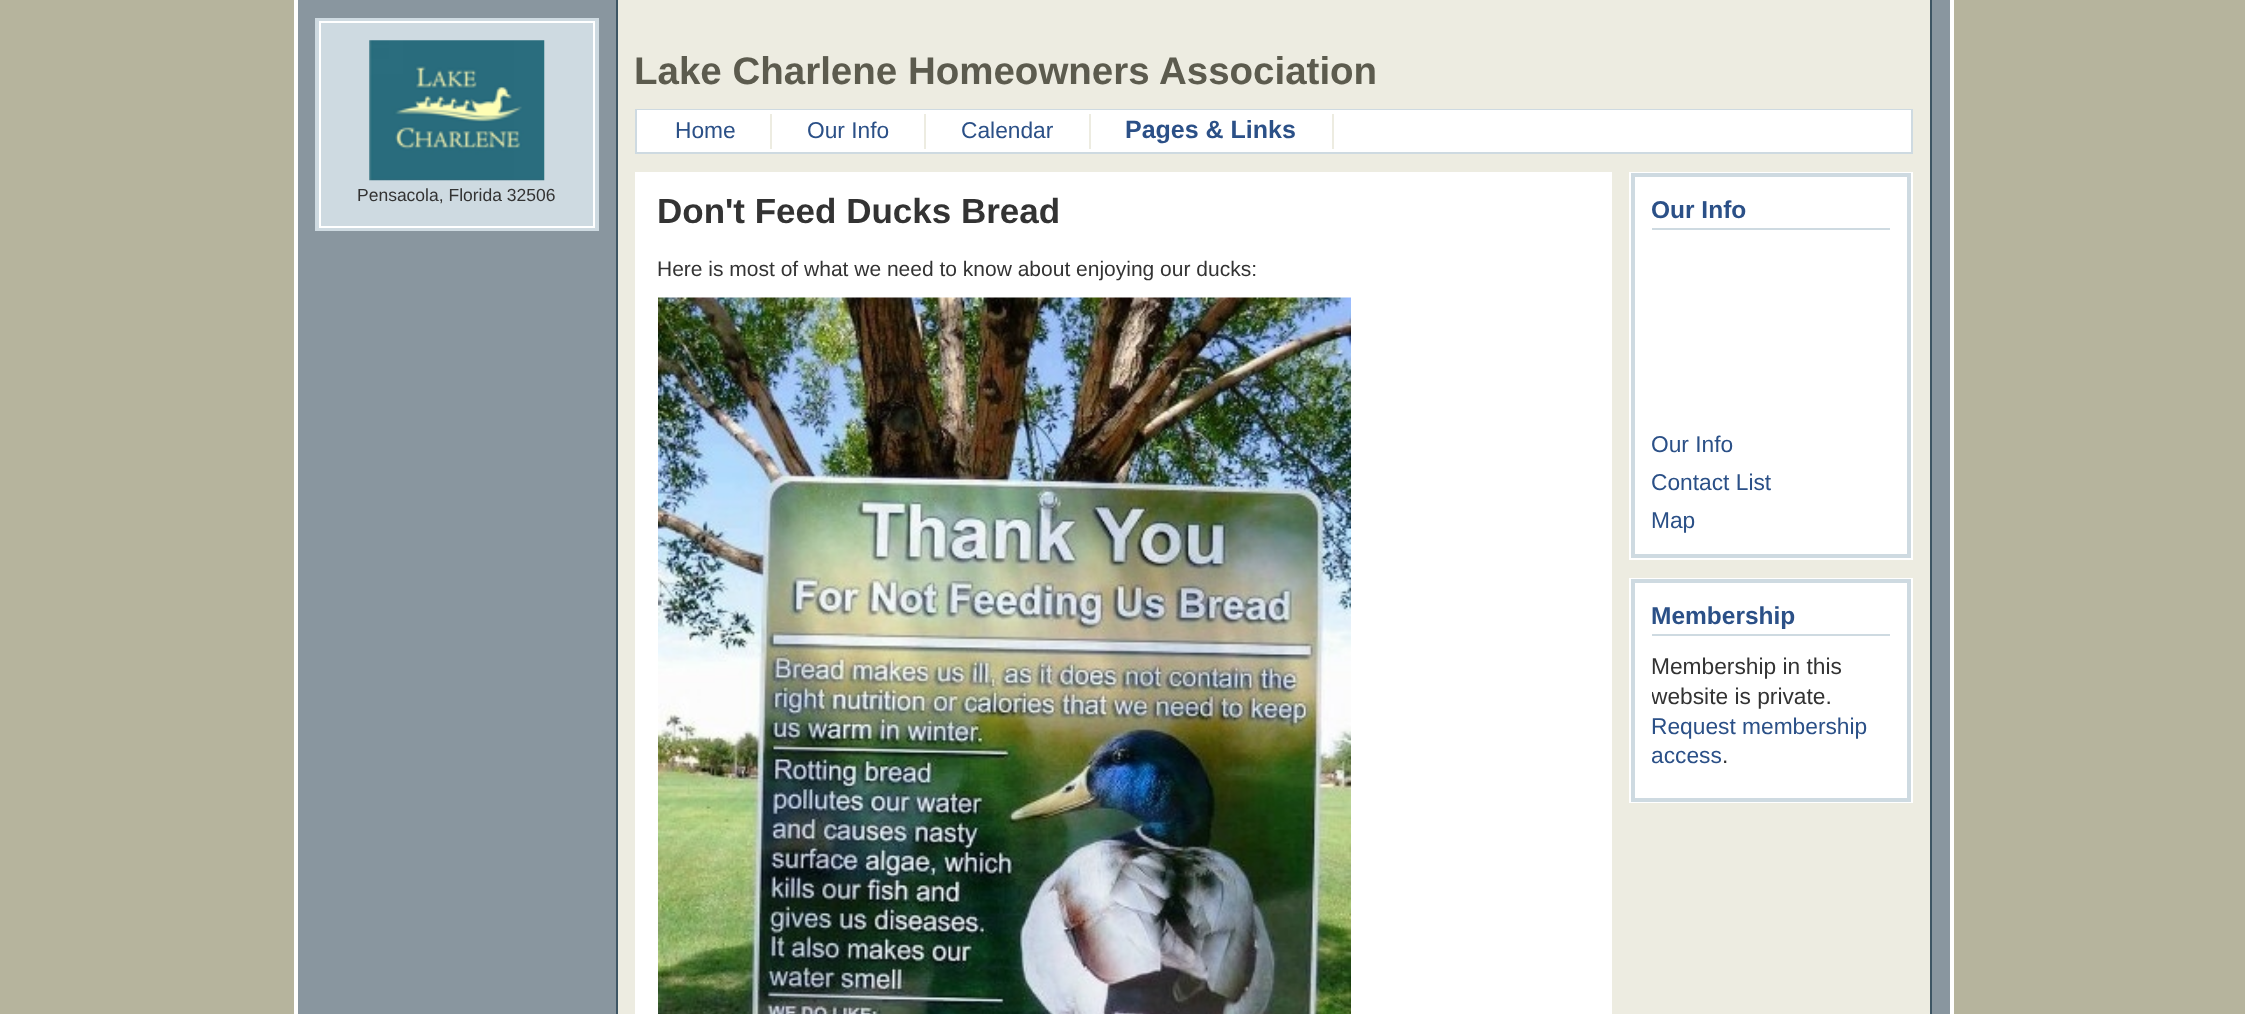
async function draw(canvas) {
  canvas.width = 2245
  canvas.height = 1014
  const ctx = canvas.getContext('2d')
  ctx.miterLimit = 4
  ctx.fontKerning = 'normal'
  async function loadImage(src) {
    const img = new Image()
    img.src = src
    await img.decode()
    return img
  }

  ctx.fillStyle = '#b6b49d'
  ctx.fillRect(0, 0, 2245, 1014)
  ctx.fillStyle = '#89969f'
  ctx.fillRect(298, 0, 1652, 1014)
  ctx.fillStyle = '#fff'
  ctx.fillRect(1950, 0, 4, 1014)
  ctx.fillRect(294, 0, 4, 1014)
  ctx.fillStyle = '#edece1'
  ctx.fillRect(618, 0, 1312, 1014)
  ctx.fillStyle = '#3d5563'
  ctx.fillRect(1930, 0, 2, 1014)
  ctx.fillRect(616, 0, 2, 1014)
  ctx.fillStyle = '#cedae1'
  ctx.fillRect(315, 18, 284, 213)
  ctx.strokeStyle = '#fff'
  ctx.lineWidth = 2
  ctx.strokeRect(320, 22, 274, 205)
  ctx.drawImage(await loadImage('image0.png'), 369, 40, 176, 141)
  ctx.font = '17.5px Liberation Sans'
  ctx.fillStyle = '#333'
  ctx.fillText('Pensacola, Florida 32506', 357, 201)
  ctx.font = 'bold 38.5px Liberation Sans'
  ctx.fillStyle = '#5c5b4e'
  ctx.fillText('Lake Charlene Homeowners Association', 634, 84)
  ctx.strokeStyle = '#cedae1'
  ctx.strokeRect(636, 110, 1276, 43)
  ctx.fillStyle = '#fff'
  ctx.fillRect(637, 110, 1274, 42)
  ctx.fillStyle = '#edece1'
  ctx.fillRect(770, 114, 2, 35)
  ctx.font = '22.75px Liberation Sans'
  ctx.fillStyle = '#2b5087'
  ctx.fillText('Home', 675, 138)
  ctx.fillStyle = '#edece1'
  ctx.fillRect(924, 114, 2, 35)
  ctx.fillStyle = '#2b5087'
  ctx.fillText('Our Info', 807, 138)
  ctx.fillStyle = '#edece1'
  ctx.fillRect(1089, 114, 2, 35)
  ctx.fillStyle = '#2b5087'
  ctx.fillText('Calendar', 961, 138)
  ctx.fillStyle = '#edece1'
  ctx.fillRect(1332, 114, 2, 35)
  ctx.font = 'bold 25px Liberation Sans'
  ctx.fillStyle = '#2b5087'
  ctx.fillText('Pages & Links', 1125, 138)
  ctx.strokeStyle = '#fff'
  ctx.strokeRect(636, 173, 975, 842)
  ctx.fillStyle = '#fff'
  ctx.fillRect(637, 174, 973, 840)
  ctx.font = 'bold 35px Liberation Sans'
  ctx.fillStyle = '#333'
  ctx.fillText('Don\'t Feed Ducks Bread', 657, 223)
  ctx.font = '21px Liberation Sans'
  ctx.fillText('Here is most of what we need to know about enjoying our ducks:', 657, 276)
  ctx.drawImage(await loadImage('image1.png'), 658, 297, 693, 717)
  ctx.fillStyle = '#fff'
  ctx.fillRect(1629, 172, 284, 388)
  ctx.strokeStyle = '#cedae1'
  ctx.lineWidth = 4
  ctx.strokeRect(1633, 175, 276, 381)
  ctx.fillStyle = '#cedae1'
  ctx.fillRect(1652, 228, 238, 2)
  ctx.font = 'bold 24.5px Liberation Sans'
  ctx.fillStyle = '#2b5087'
  ctx.fillText('Our Info', 1651, 218)
  ctx.font = '22.75px Liberation Sans'
  ctx.fillText('Our Info', 1651, 452)
  ctx.fillText('Contact List', 1651, 490)
  ctx.fillText('Map', 1651, 528)
  ctx.fillStyle = '#fff'
  ctx.fillRect(1629, 578, 284, 225)
  ctx.strokeRect(1633, 581, 276, 219)
  ctx.fillStyle = '#cedae1'
  ctx.fillRect(1652, 634, 238, 2)
  ctx.font = 'bold 24.5px Liberation Sans'
  ctx.fillStyle = '#2b5087'
  ctx.fillText('Membership', 1651, 624)
  ctx.font = '22.75px Liberation Sans'
  ctx.fillStyle = '#333'
  ctx.fillText('Membership in this', 1651, 674)
  ctx.save()
  ctx.beginPath()
  ctx.rect(1652, 644, 238, 128)
  ctx.clip()
  ctx.fillText('website is private.', 1651, 704)
  ctx.restore()
  ctx.fillStyle = '#2b5087'
  ctx.fillText('Request membership', 1651, 734)
  ctx.fillText('access', 1651, 763)
  ctx.fillStyle = '#333'
  ctx.fillText('.', 1722, 763)
}

draw(document.querySelector('canvas'))
